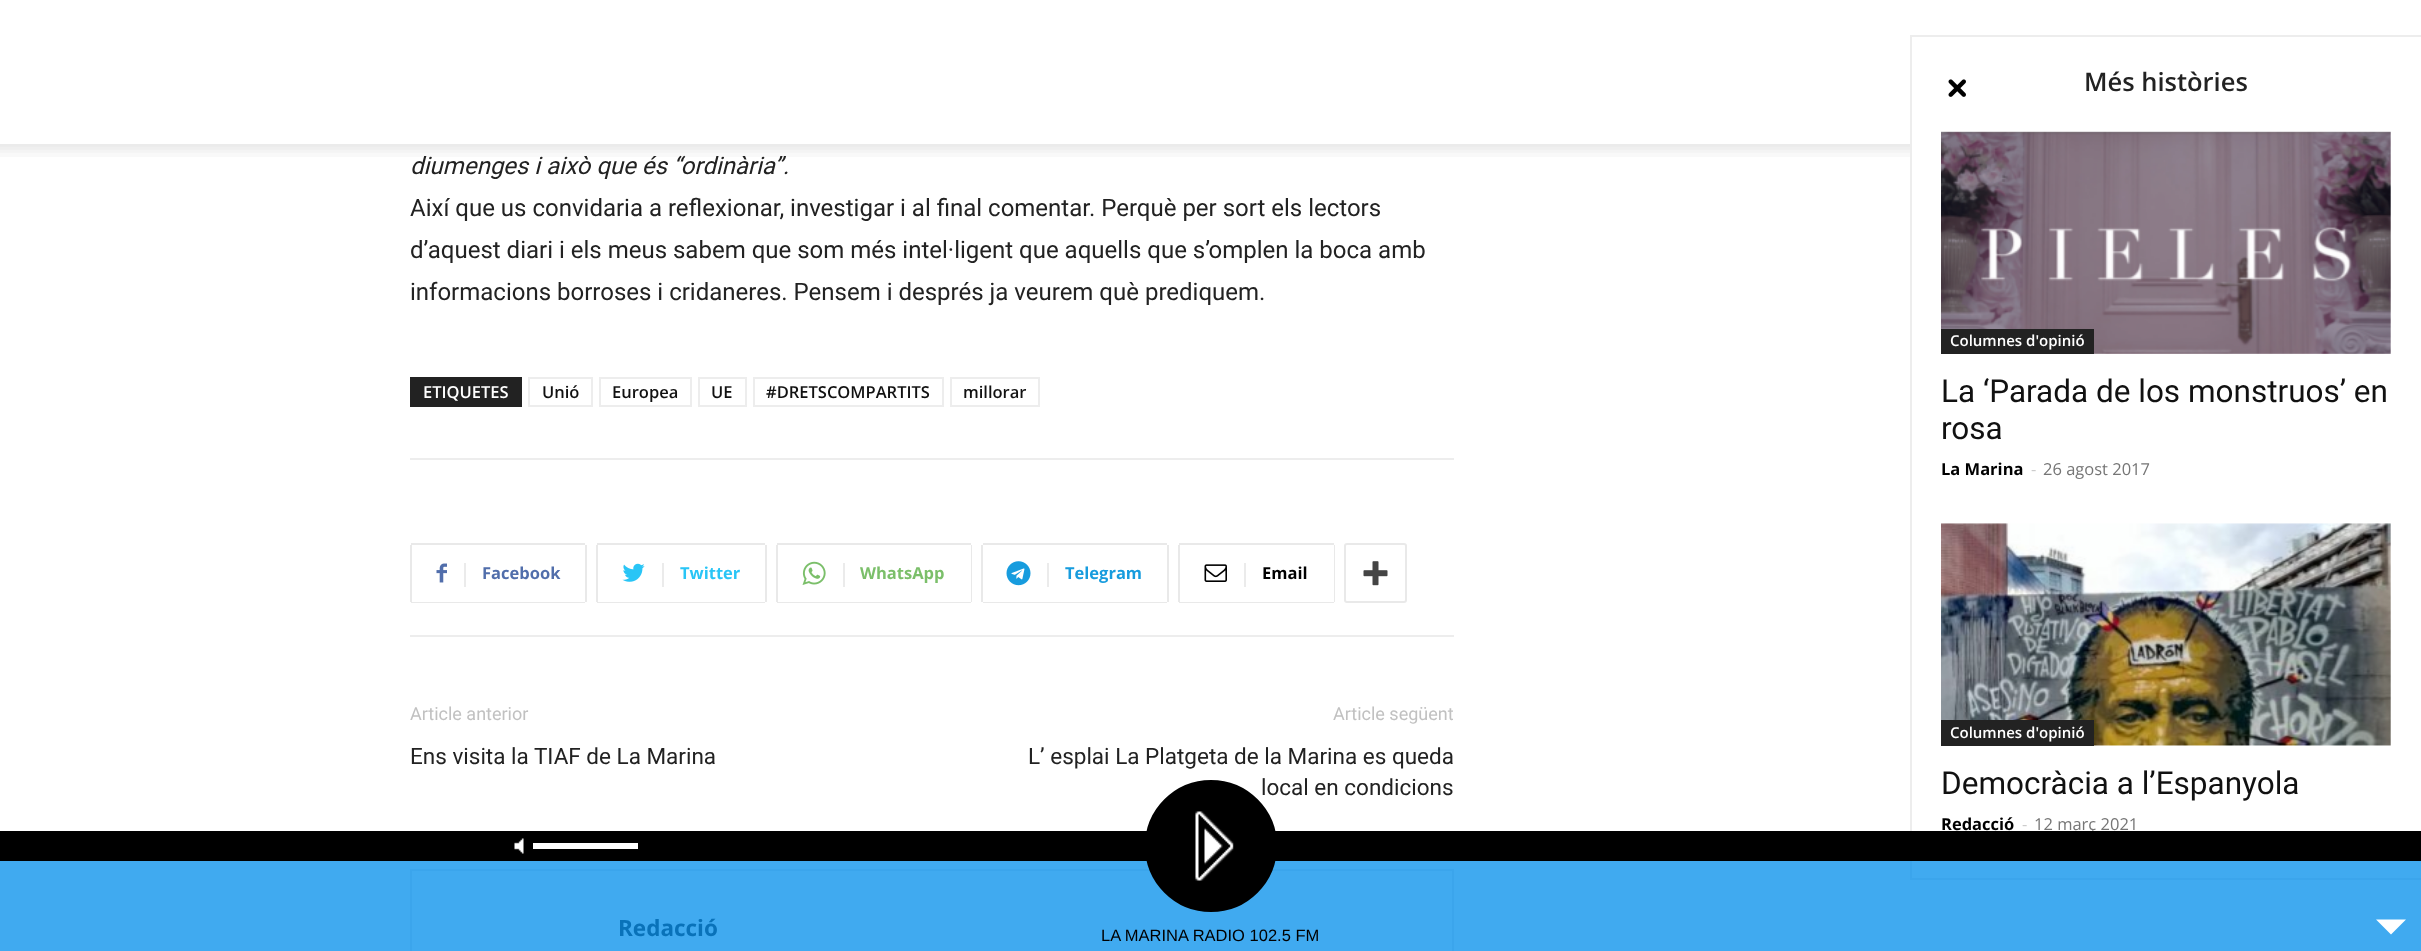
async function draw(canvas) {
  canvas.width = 2421
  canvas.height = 951
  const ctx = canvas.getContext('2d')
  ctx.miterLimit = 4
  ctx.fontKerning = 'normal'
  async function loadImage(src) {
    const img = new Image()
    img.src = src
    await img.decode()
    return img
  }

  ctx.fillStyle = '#fff'
  ctx.fillRect(0, 0, 2421, 951)
  ctx.fillStyle = '#40aaf0'
  ctx.fillRect(0, 861, 2421, 90)
  ctx.font = 'italic 24px Roboto'
  ctx.fillStyle = '#222'
  ctx.fillText('diumenges i això que és “ordinària”.', 410, 174)
  ctx.drawImage(await loadImage('image0.png'), 0, 144, 1910, 13)
  ctx.font = '24px Roboto'
  ctx.fillText('Així que us convidaria a reflexionar, investigar i al final comentar. Perquè per sort els lectors', 410, 216)
  ctx.fillText('d’aquest diari i els meus sabem que som més intel·ligent que aquells que s’omplen la boca amb', 410, 258)
  ctx.fillText('informacions borroses i cridaneres. Pensem i després ja veurem què prediquem.', 410, 300)
  ctx.fillRect(410, 377, 112, 30)
  ctx.font = '600 16.5px Open Sans'
  ctx.fillStyle = '#fff'
  ctx.fillText('ETIQUETES', 423, 398)
  ctx.strokeStyle = '#ededed'
  ctx.lineWidth = 2
  ctx.strokeRect(529, 378, 63, 28)
  ctx.fillStyle = '#111'
  ctx.fillText('Unió', 542, 398)
  ctx.strokeRect(600, 378, 91, 28)
  ctx.fillText('Europea', 612, 398)
  ctx.strokeRect(699, 378, 47, 28)
  ctx.fillText('UE', 711, 398)
  ctx.strokeRect(754, 378, 189, 28)
  ctx.fillText('#DRETSCOMPARTITS', 766, 398)
  ctx.strokeRect(951, 378, 88, 28)
  ctx.fillText('millorar', 963, 398)
  ctx.fillStyle = '#ededed'
  ctx.fillRect(410, 458, 1044, 2)
  ctx.fillRect(410, 635, 1044, 2)
  ctx.fillStyle = '#e9e9e9'
  ctx.fillRect(410, 545, 2, 57)
  ctx.drawImage(await loadImage('image1.png'), 436, 563, 11, 20)
  ctx.fillRect(411, 543, 174, 2)
  ctx.fillRect(585, 545, 2, 57)
  ctx.fillRect(411, 602, 174, 1)
  ctx.fillStyle = '#ebebeb'
  ctx.fillRect(464, 563, 2, 24)
  ctx.font = 'bold 16.5px Open Sans'
  ctx.fillStyle = '#516eab'
  ctx.fillText('Facebook', 482, 579)
  ctx.fillStyle = '#e9e9e9'
  ctx.fillRect(596, 545, 2, 57)
  ctx.drawImage(await loadImage('image2.png'), 622, 563, 23, 19)
  ctx.fillRect(597, 543, 168, 2)
  ctx.fillRect(765, 545, 2, 57)
  ctx.fillRect(597, 602, 168, 1)
  ctx.fillStyle = '#ebebeb'
  ctx.fillRect(662, 563, 2, 24)
  ctx.fillStyle = '#29c5f6'
  ctx.fillText('Twitter', 680, 579)
  ctx.fillStyle = '#e9e9e9'
  ctx.fillRect(776, 545, 2, 57)
  ctx.drawImage(await loadImage('image3.png'), 802, 561, 24, 24)
  ctx.fillRect(777, 543, 194, 2)
  ctx.fillRect(971, 545, 1, 57)
  ctx.fillRect(777, 602, 194, 1)
  ctx.fillStyle = '#ebebeb'
  ctx.fillRect(843, 563, 2, 24)
  ctx.fillStyle = '#7bbf6a'
  ctx.fillText('WhatsApp', 860, 579)
  ctx.fillStyle = '#e9e9e9'
  ctx.fillRect(981, 545, 2, 57)
  ctx.drawImage(await loadImage('image4.png'), 1006, 561, 25, 25)
  ctx.fillRect(983, 543, 184, 2)
  ctx.fillRect(1167, 545, 2, 57)
  ctx.fillRect(983, 602, 184, 1)
  ctx.fillStyle = '#ebebeb'
  ctx.fillRect(1047, 563, 2, 24)
  ctx.fillStyle = '#179cde'
  ctx.fillText('Telegram', 1065, 579)
  ctx.fillStyle = '#e9e9e9'
  ctx.fillRect(1178, 545, 2, 57)
  ctx.drawImage(await loadImage('image5.png'), 1204, 564, 23, 18)
  ctx.fillRect(1179, 543, 155, 2)
  ctx.fillRect(1334, 545, 1, 57)
  ctx.fillRect(1179, 602, 155, 1)
  ctx.fillStyle = '#ebebeb'
  ctx.fillRect(1244, 563, 2, 24)
  ctx.fillStyle = '#000'
  ctx.fillText('Email', 1262, 579)
  ctx.beginPath()
  ctx.roundRect(1345, 544, 61, 58, 2)
  ctx.strokeStyle = '#e9e9e9'
  ctx.stroke()
  ctx.drawImage(await loadImage('image6.png'), 1363, 561, 25, 25)
  ctx.font = '18px Roboto'
  ctx.fillStyle = '#c1c1c1'
  ctx.fillText('Article anterior', 410, 720)
  ctx.font = '22.5px Roboto'
  ctx.fillStyle = '#222'
  ctx.fillText('Ens visita la TIAF de La Marina', 410, 764)
  ctx.font = '18px Roboto'
  ctx.fillStyle = '#c1c1c1'
  ctx.fillText('Article següent', 1333, 720)
  ctx.font = '22.5px Roboto'
  ctx.fillStyle = '#222'
  ctx.fillText('L’ esplai La Platgeta de la Marina es queda', 1028, 764)
  ctx.fillText('local en condicions', 1261, 795)
  ctx.strokeStyle = '#3ba5ec'
  ctx.strokeRect(411, 870, 1042, 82)
  ctx.font = 'bold 22.5px Open Sans'
  ctx.fillStyle = '#0972b9'
  ctx.fillText('Redacció', 618, 936)
  ctx.fillStyle = '#ededed'
  ctx.fillRect(1910, 35, 511, 2)
  ctx.fillStyle = '#3ba5ec'
  ctx.fillRect(1910, 878, 511, 2)
  ctx.fillStyle = '#ededed'
  ctx.fillRect(1910, 35, 2, 796)
  ctx.fillStyle = '#3ba5ec'
  ctx.fillRect(1910, 861, 2, 18)
  ctx.drawImage(await loadImage('image7.png'), 1948, 79, 18, 18)
  ctx.font = '600 25.5px Open Sans'
  ctx.fillStyle = '#222'
  ctx.fillText('Més històries', 2084, 91)
  ctx.drawImage(await loadImage('image8.png'), 1941, 131, 450, 223)
  ctx.fillRect(1941, 329, 153, 25)
  ctx.font = '600 15px Open Sans'
  ctx.fillStyle = '#fff'
  ctx.fillText('Columnes d\'opinió', 1950, 346)
  ctx.font = '31.5px Roboto'
  ctx.fillStyle = '#111'
  ctx.fillText('La ‘Parada de los monstruos’ en', 1941, 402)
  ctx.fillText('rosa', 1941, 439)
  ctx.font = 'bold 16.5px Open Sans'
  ctx.fillStyle = '#000'
  ctx.fillText('La Marina', 1941, 475)
  ctx.font = '16.5px Open Sans'
  ctx.fillStyle = '#ccc'
  ctx.fillText('-', 2031, 475)
  ctx.fillStyle = '#767676'
  ctx.fillText('26 agost 2017', 2043, 475)
  ctx.drawImage(await loadImage('image9.png'), 1941, 523, 450, 223)
  ctx.fillStyle = '#222'
  ctx.fillRect(1941, 720, 153, 26)
  ctx.font = '600 15px Open Sans'
  ctx.fillStyle = '#fff'
  ctx.fillText('Columnes d\'opinió', 1950, 738)
  ctx.font = '31.5px Roboto'
  ctx.fillStyle = '#111'
  ctx.fillText('Democràcia a l’Espanyola', 1941, 794)
  ctx.font = 'bold 16.5px Open Sans'
  ctx.fillStyle = '#000'
  ctx.fillText('Redacció', 1941, 830)
  ctx.font = '16.5px Open Sans'
  ctx.fillStyle = '#ccc'
  ctx.fillText('-', 2022, 830)
  ctx.fillStyle = '#767676'
  ctx.fillText('12 març 2021', 2034, 830)
  ctx.fillStyle = '#000'
  ctx.fillRect(0, 831, 2421, 30)
  ctx.beginPath()
  ctx.arc(1211, 846, 63, 0, 2 * Math.PI)
  ctx.fill()
  ctx.strokeStyle = '#000'
  ctx.lineWidth = 6
  ctx.stroke()
  ctx.drawImage(await loadImage('image10.png'), 514, 838, 10, 16)
  ctx.fillStyle = '#fff'
  ctx.fillRect(533, 843, 105, 6)
  ctx.drawImage(await loadImage('image11.png'), 1195, 811, 39, 70)
  ctx.font = '16.5px Liberation Sans'
  ctx.fillStyle = '#000'
  ctx.fillText('LA MARINA RADIO 102.5 FM', 1101, 941)
  ctx.fillStyle = '#fff'
  ctx.beginPath()
  ctx.moveTo(2376, 919.5)
  ctx.lineTo(2406, 919.5)
  ctx.lineTo(2391, 934.5)
  ctx.closePath()
  ctx.fill()
}

draw(document.querySelector('canvas'))
